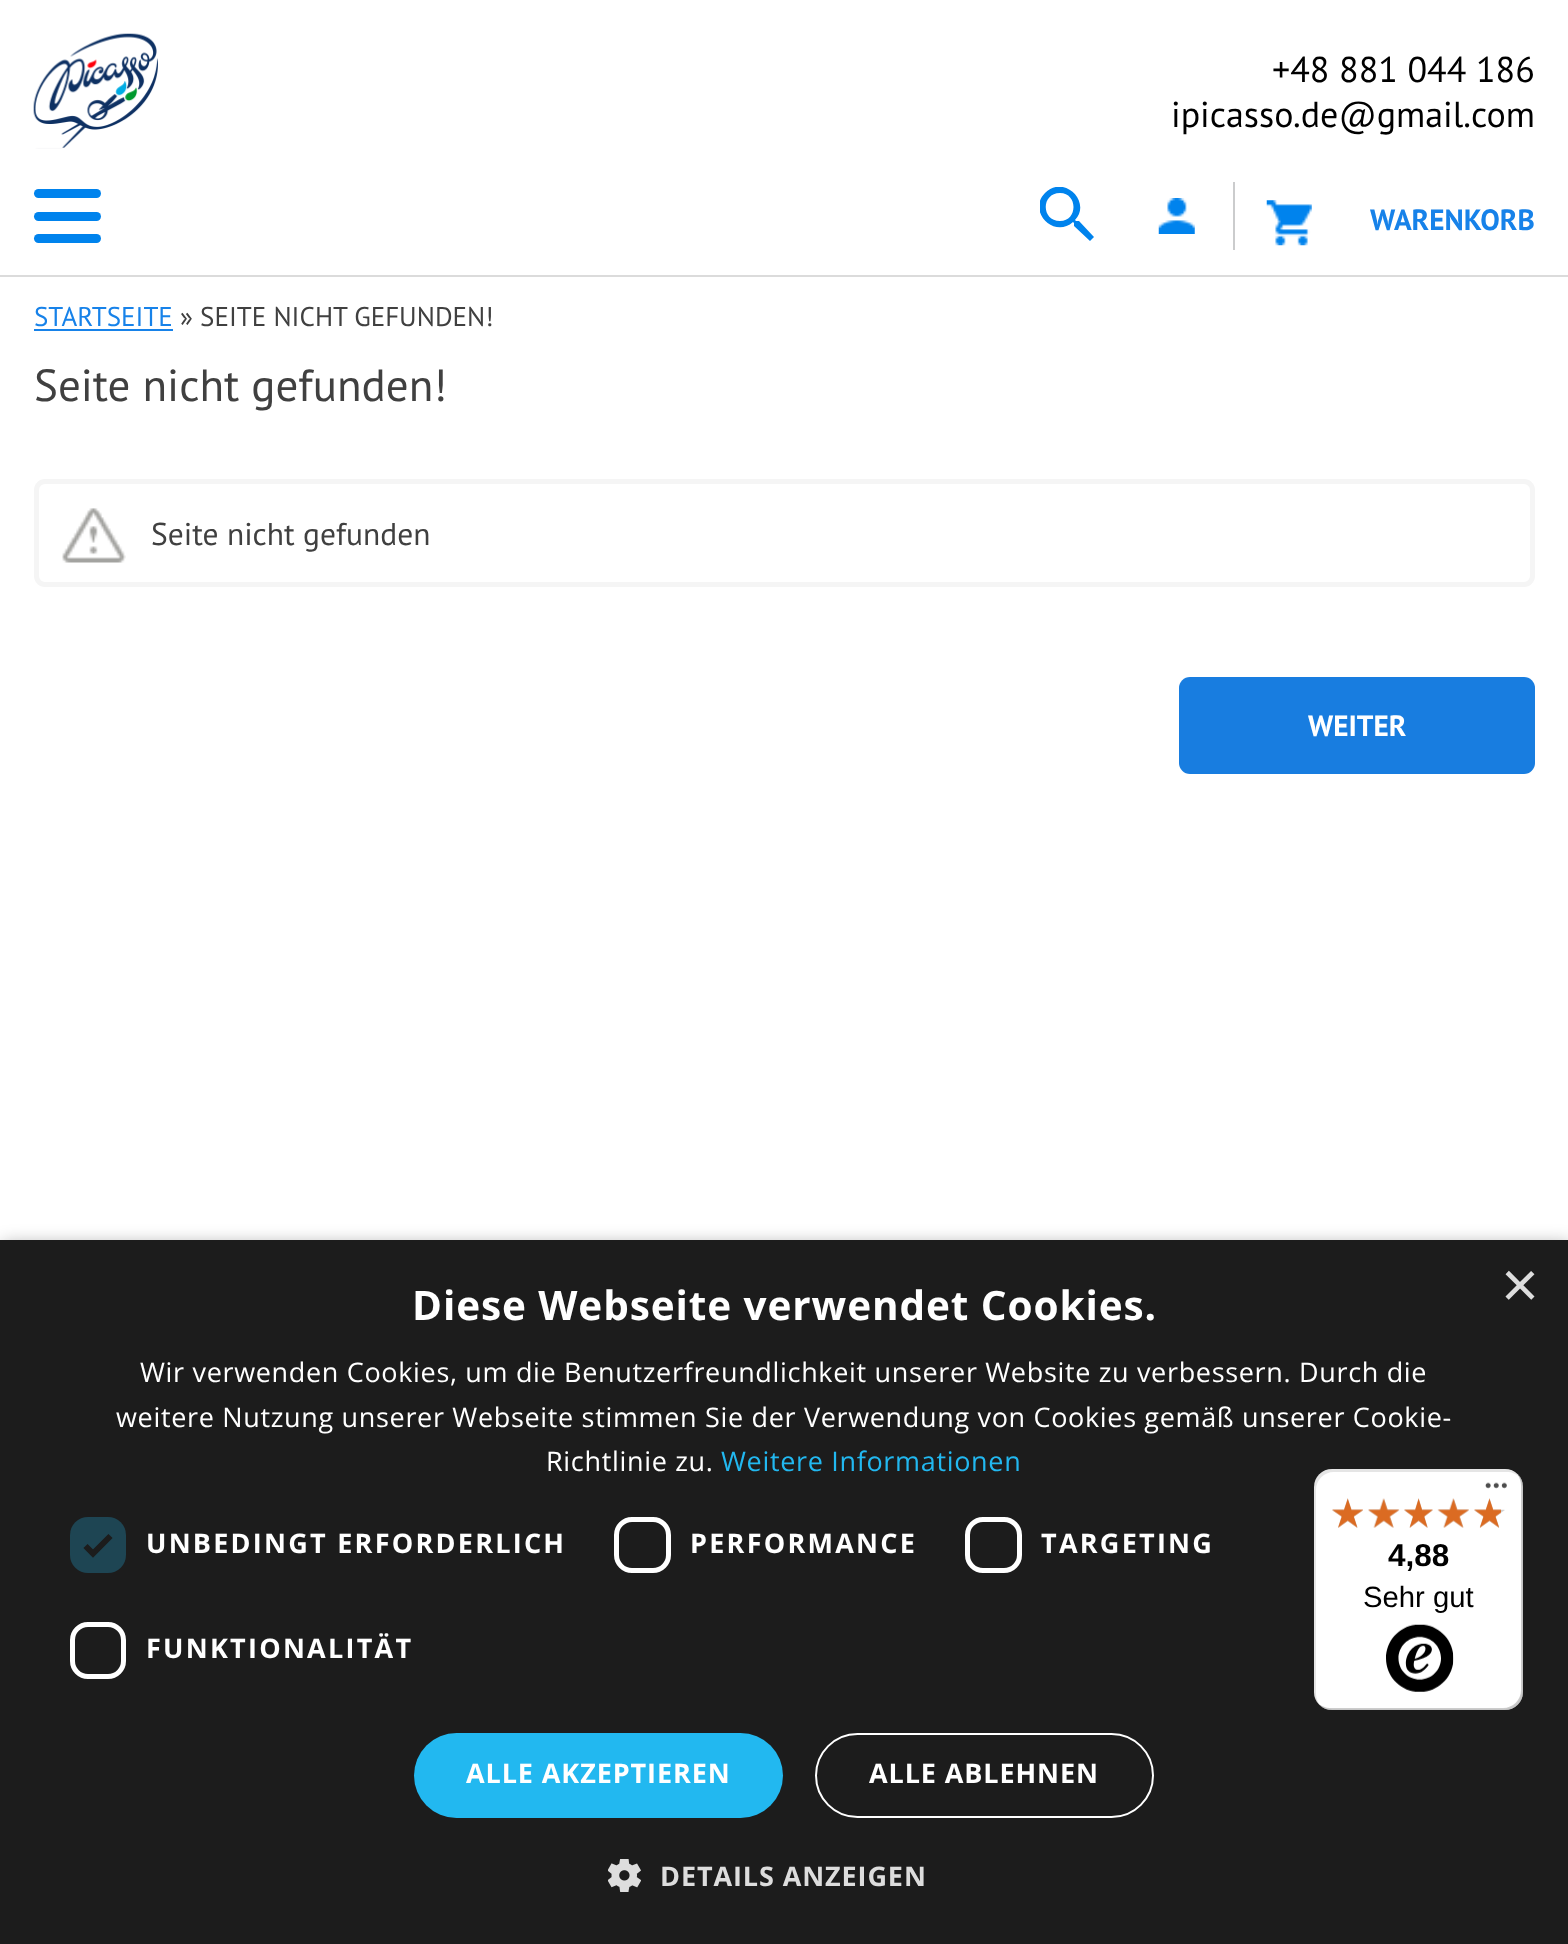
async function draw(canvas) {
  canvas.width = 1568
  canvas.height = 1944
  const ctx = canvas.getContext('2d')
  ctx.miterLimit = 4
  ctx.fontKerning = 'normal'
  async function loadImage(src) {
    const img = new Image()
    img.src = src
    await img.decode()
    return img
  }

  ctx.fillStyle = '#fff'
  ctx.fillRect(0, 0, 1568, 1944)
  ctx.fillStyle = '#dbdbdb'
  ctx.fillRect(0, 275, 1568, 2)
  ctx.drawImage(await loadImage('image0.png'), 33, 33, 125, 116)
  ctx.font = '36px PT Sans'
  ctx.fillStyle = '#000'
  ctx.fillText('+48 881 044 186', 1272, 82)
  ctx.fillText('ipicasso.de@gmail.com', 1171, 127)
  ctx.fillStyle = '#0083ed'
  ctx.beginPath()
  ctx.roundRect(34, 189, 67, 9, 4.5)
  ctx.fill()
  ctx.beginPath()
  ctx.roundRect(34, 212, 67, 9, 4.5)
  ctx.fill()
  ctx.beginPath()
  ctx.roundRect(34, 234, 67, 9, 4.5)
  ctx.fill()
  ctx.save()
  ctx.beginPath()
  ctx.rect(1040, 187, 56, 56)
  ctx.clip()
  ctx.beginPath()
  ctx.moveTo(1079, 221)
  ctx.lineTo(1076, 221)
  ctx.lineTo(1075, 220)
  ctx.bezierCurveTo(1092, 202, 1064, 174, 1045, 193)
  ctx.bezierCurveTo(1027, 211, 1054, 239, 1073, 222)
  ctx.lineTo(1074, 223)
  ctx.lineTo(1074, 226)
  ctx.lineTo(1090, 241)
  ctx.lineTo(1094, 237)
  ctx.closePath()
  ctx.moveTo(1060, 221)
  ctx.bezierCurveTo(1041, 221, 1041, 193, 1060, 193)
  ctx.bezierCurveTo(1078, 193, 1078, 221, 1060, 221)
  ctx.closePath()
  ctx.fill('evenodd')
  ctx.restore()
  ctx.drawImage(await loadImage('image1.png'), 1158, 198, 37, 36)
  ctx.fillStyle = '#cbcccd'
  ctx.fillRect(1233, 182, 2, 68)
  ctx.drawImage(await loadImage('image2.png'), 1266, 200, 46, 46)
  ctx.font = 'bold 29.25px PT Sans'
  ctx.fillStyle = '#1782e9'
  ctx.fillText('WARENKORB', 1370, 230)
  ctx.font = '27px PT Sans'
  ctx.fillText('STARTSEITE', 34, 326)
  ctx.fillRect(34, 329, 139, 2)
  ctx.fillStyle = '#404040'
  ctx.fillText('» SEITE NICHT GEFUNDEN!', 180, 326)
  ctx.font = '45px PT Sans'
  ctx.fillText('Seite nicht gefunden!', 34, 401)
  ctx.drawImage(await loadImage('image3.png'), 62, 508, 64, 55)
  ctx.beginPath()
  ctx.roundRect(36.5, 481.5, 1496, 103, 8.5)
  ctx.strokeStyle = '#f5f5f5'
  ctx.lineWidth = 5
  ctx.stroke()
  ctx.font = '31.5px PT Sans'
  ctx.fillText('Seite nicht gefunden', 151, 545)
  ctx.fillStyle = '#187de0'
  ctx.beginPath()
  ctx.roundRect(1179, 677, 356, 97, 11)
  ctx.fill()
  ctx.font = 'bold 29.25px PT Sans'
  ctx.fillStyle = '#fff'
  ctx.fillText('WEITER', 1308, 736)
  ctx.fillStyle = '#00000059'
  ctx.filter = 'blur(9px)'
  ctx.beginPath()
  ctx.rect(2, 1244, 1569, 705)
  ctx.fill()
  ctx.filter = 'none'
  ctx.fillStyle = '#1c1c1c'
  ctx.fillRect(0, 1240, 1568, 704)
  ctx.font = '65px Liberation Sans'
  ctx.fillStyle = '#ddd'
  ctx.fillText('×', 1501, 1307)
  ctx.letterSpacing = '0.9px'
  ctx.font = 'bold 40.5px Open Sans'
  ctx.fillStyle = '#fff'
  ctx.fillText('Diese Webseite verwendet Cookies.', 412, 1320)
  ctx.letterSpacing = '0.67px'
  ctx.font = '27px Open Sans'
  ctx.fillText('Wir verwenden Cookies, um die Benutzerfreundlichkeit unserer Website zu verbessern. Durch die', 140, 1382)
  ctx.fillText('weitere Nutzung unserer Webseite stimmen Sie der Verwendung von Cookies gemäß unserer Cookie-', 116, 1427)
  ctx.fillText('Richtlinie zu.', 546, 1471)
  ctx.fillStyle = '#22b8f0'
  ctx.fillText('Weitere Informationen', 721, 1471)
  ctx.fillStyle = '#1e4553'
  ctx.beginPath()
  ctx.roundRect(70, 1517, 56, 56, 18)
  ctx.fill()
  ctx.beginPath()
  ctx.moveTo(85.5, 1546)
  ctx.lineTo(93, 1553.5)
  ctx.lineTo(110.5, 1536)
  ctx.strokeStyle = '#1c1c1c'
  ctx.lineWidth = 5.9
  ctx.stroke()
  ctx.letterSpacing = '2.25px'
  ctx.font = 'bold 27px Open Sans'
  ctx.fillStyle = '#fff'
  ctx.fillText('UNBEDINGT ERFORDERLICH', 146, 1553)
  ctx.beginPath()
  ctx.roundRect(616.5, 1519.5, 52, 51, 15.5)
  ctx.strokeStyle = '#fff'
  ctx.lineWidth = 5
  ctx.stroke()
  ctx.fillText('PERFORMANCE', 690, 1553)
  ctx.beginPath()
  ctx.roundRect(967.5, 1519.5, 52, 51, 15.5)
  ctx.stroke()
  ctx.fillText('TARGETING', 1041, 1553)
  ctx.beginPath()
  ctx.roundRect(72.5, 1624.5, 51, 52, 15.5)
  ctx.stroke()
  ctx.fillText('FUNKTIONALITÄT', 146, 1658)
  ctx.fillStyle = '#22b8f0'
  ctx.beginPath()
  ctx.roundRect(414, 1733, 369, 85, 42.5)
  ctx.fill()
  ctx.letterSpacing = '0.9px'
  ctx.fillStyle = '#fff'
  ctx.fillText('ALLE AKZEPTIEREN', 466, 1783)
  ctx.beginPath()
  ctx.roundRect(816, 1734, 337, 83, 41.5)
  ctx.lineWidth = 2
  ctx.stroke()
  ctx.fillText('ALLE ABLEHNEN', 869, 1783)
  ctx.drawImage(await loadImage('image4.png'), 608, 1859, 33, 33)
  ctx.fillStyle = '#ddd'
  ctx.fillText('DETAILS ANZEIGEN', 660, 1886)
  ctx.fillStyle = '#fff'
  ctx.beginPath()
  ctx.roundRect(1314, 1469, 209, 241, 18)
  ctx.fill()
  ctx.fillStyle = '#0000001a'
  ctx.beginPath()
  ctx.moveTo(1334, 1472)
  ctx.lineTo(1508, 1472)
  ctx.bezierCurveTo(1512, 1472, 1516, 1474, 1520, 1477)
  ctx.bezierCurveTo(1516, 1472, 1511, 1469, 1505, 1469)
  ctx.lineTo(1332, 1469)
  ctx.bezierCurveTo(1322, 1469, 1314, 1477, 1314, 1487)
  ctx.lineTo(1314, 1692)
  ctx.bezierCurveTo(1314, 1697, 1316, 1702, 1320, 1706)
  ctx.bezierCurveTo(1318, 1702, 1316, 1698, 1316, 1694)
  ctx.lineTo(1316, 1490)
  ctx.bezierCurveTo(1316, 1480, 1324, 1472, 1334, 1472)
  ctx.closePath()
  ctx.fill()
  ctx.fillStyle = '#00000033'
  ctx.beginPath()
  ctx.moveTo(1318, 1704)
  ctx.bezierCurveTo(1322, 1708, 1327, 1710, 1332, 1710)
  ctx.lineTo(1505, 1710)
  ctx.bezierCurveTo(1515, 1710, 1523, 1702, 1523, 1692)
  ctx.lineTo(1523, 1487)
  ctx.bezierCurveTo(1523, 1482, 1521, 1477, 1517, 1473)
  ctx.bezierCurveTo(1519, 1477, 1521, 1481, 1521, 1485)
  ctx.lineTo(1521, 1690)
  ctx.bezierCurveTo(1521, 1700, 1513, 1708, 1503, 1708)
  ctx.lineTo(1330, 1708)
  ctx.bezierCurveTo(1326, 1708, 1322, 1706, 1318, 1704)
  ctx.closePath()
  ctx.fill()
  ctx.fillStyle = '#32323233'
  ctx.beginPath()
  ctx.moveTo(1319, 1705)
  ctx.bezierCurveTo(1322, 1708, 1327, 1710, 1332, 1710)
  ctx.lineTo(1505, 1710)
  ctx.bezierCurveTo(1515, 1710, 1523, 1702, 1523, 1692)
  ctx.lineTo(1523, 1487)
  ctx.bezierCurveTo(1523, 1482, 1521, 1477, 1518, 1474)
  ctx.bezierCurveTo(1520, 1477, 1522, 1481, 1522, 1486)
  ctx.lineTo(1522, 1691)
  ctx.bezierCurveTo(1522, 1701, 1514, 1709, 1504, 1709)
  ctx.lineTo(1331, 1709)
  ctx.bezierCurveTo(1326, 1709, 1322, 1707, 1319, 1705)
  ctx.closePath()
  ctx.fill()
  ctx.fillStyle = '#ffffff4d'
  ctx.beginPath()
  ctx.moveTo(1319, 1705)
  ctx.bezierCurveTo(1322, 1708, 1327, 1710, 1332, 1710)
  ctx.lineTo(1505, 1710)
  ctx.bezierCurveTo(1515, 1710, 1523, 1702, 1523, 1692)
  ctx.lineTo(1523, 1487)
  ctx.bezierCurveTo(1523, 1482, 1521, 1477, 1518, 1474)
  ctx.bezierCurveTo(1520, 1477, 1522, 1481, 1522, 1486)
  ctx.lineTo(1522, 1691)
  ctx.bezierCurveTo(1522, 1701, 1514, 1709, 1504, 1709)
  ctx.lineTo(1331, 1709)
  ctx.bezierCurveTo(1326, 1709, 1322, 1707, 1319, 1705)
  ctx.closePath()
  ctx.fill()
  ctx.drawImage(await loadImage('image5.png'), 1485, 1482, 22, 7)
  ctx.drawImage(await loadImage('image6.png'), 1332, 1498, 31, 30)
  ctx.drawImage(await loadImage('image7.png'), 1368, 1498, 31, 30)
  ctx.drawImage(await loadImage('image8.png'), 1404, 1498, 29, 30)
  ctx.drawImage(await loadImage('image9.png'), 1438, 1498, 31, 30)
  ctx.drawImage(await loadImage('image10.png'), 1474, 1498, 31, 30)
  ctx.drawImage(await loadImage('image11.png'), 1332, 1498, 31, 30)
  ctx.drawImage(await loadImage('image12.png'), 1368, 1498, 32, 30)
  ctx.drawImage(await loadImage('image13.png'), 1404, 1498, 29, 30)
  ctx.drawImage(await loadImage('image14.png'), 1437, 1498, 32, 30)
  ctx.drawImage(await loadImage('image15.png'), 1474, 1498, 27, 30)
  ctx.letterSpacing = '0px'
  ctx.font = 'bold 31.5px Liberation Sans'
  ctx.fillStyle = '#000'
  ctx.fillText('4,88', 1388, 1566)
  ctx.font = '29.25px Liberation Sans'
  ctx.fillText('Sehr gut', 1363, 1607)
  ctx.drawImage(await loadImage('image16.png'), 1386, 1624, 68, 68)
}

draw(document.querySelector('canvas'))
